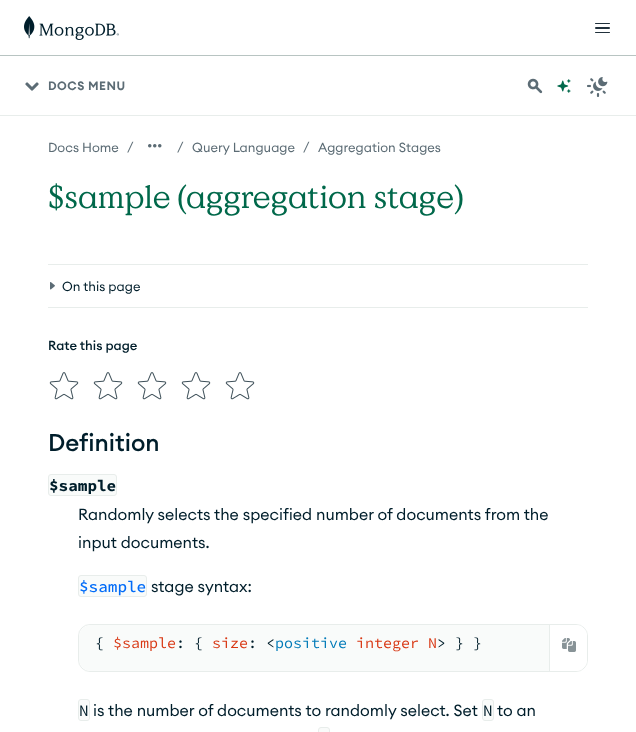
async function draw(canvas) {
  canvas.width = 636
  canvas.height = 732
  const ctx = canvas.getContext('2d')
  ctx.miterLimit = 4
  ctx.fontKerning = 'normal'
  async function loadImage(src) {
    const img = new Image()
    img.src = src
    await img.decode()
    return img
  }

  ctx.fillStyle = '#fff'
  ctx.fillRect(0, 0, 636, 732)
  ctx.fillStyle = '#b8c4c2'
  ctx.fillRect(0, 55, 636, 1)
  ctx.drawImage(await loadImage('image0.png'), 24, 16, 95, 24)
  ctx.fillStyle = '#21313c'
  ctx.beginPath()
  ctx.roundRect(595, 23, 15, 1, 0.5)
  ctx.fill()
  ctx.beginPath()
  ctx.roundRect(595, 27, 15, 2, 1)
  ctx.fill()
  ctx.beginPath()
  ctx.roundRect(595, 32, 15, 1, 0.5)
  ctx.fill()
  ctx.fillStyle = '#e8edeb'
  ctx.fillRect(0, 115, 636, 1)
  ctx.drawImage(await loadImage('image1.png'), 25, 82, 14, 9)
  ctx.letterSpacing = '0.5px'
  ctx.font = '600 12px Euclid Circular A'
  ctx.fillStyle = '#5c6c75'
  ctx.fillText('DOCS MENU', 48, 90)
  ctx.drawImage(await loadImage('image2.png'), 527, 78, 16, 16)
  ctx.drawImage(await loadImage('image3.png'), 557, 79, 14, 14)
  ctx.drawImage(await loadImage('image4.png'), 587, 77, 21, 20)
  ctx.letterSpacing = '0px'
  ctx.font = '13px Euclid Circular A'
  ctx.fillText('Docs Home', 48, 152)
  ctx.fillText('/', 127, 151)
  ctx.drawImage(await loadImage('image5.png'), 148, 144, 14, 4)
  ctx.fillText('/', 177, 151)
  ctx.fillText('Query Language', 192, 152)
  ctx.fillText('/', 303, 151)
  ctx.fillText('Aggregation Stages', 318, 152)
  ctx.font = '32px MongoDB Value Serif'
  ctx.fillStyle = '#00684a'
  ctx.fillText('$sample (aggregation stage)', 48, 208)
  ctx.fillStyle = '#e8edeb'
  ctx.fillRect(48, 264, 540, 1)
  ctx.fillRect(48, 307, 540, 1)
  ctx.drawImage(await loadImage('image6.png'), 50, 282, 5, 8)
  ctx.font = '13px Euclid Circular A'
  ctx.fillStyle = '#001e2b'
  ctx.fillText('On this page', 62, 291)
  ctx.font = '500 13px Euclid Circular A'
  ctx.fillText('Rate this page', 48, 350)
  ctx.drawImage(await loadImage('image7.png'), 49, 372, 30, 28)
  ctx.drawImage(await loadImage('image7.png'), 93, 372, 30, 28)
  ctx.drawImage(await loadImage('image7.png'), 137, 372, 30, 28)
  ctx.drawImage(await loadImage('image7.png'), 181, 372, 30, 28)
  ctx.drawImage(await loadImage('image7.png'), 225, 372, 30, 28)
  ctx.font = '500 24px Euclid Circular A'
  ctx.fillText('Definition', 48, 451)
  ctx.fillStyle = '#f9fbfa'
  ctx.beginPath()
  ctx.roundRect(48.5, 474.5, 68, 21, 2.5)
  ctx.fill()
  ctx.strokeStyle = '#e8edeb'
  ctx.stroke()
  ctx.font = 'bold 16px Source Code Pro'
  ctx.fillStyle = '#001e2b'
  ctx.fillText('$sample', 49, 491)
  ctx.font = '16px Euclid Circular A'
  ctx.fillText('Randomly selects the specified number of documents from the', 78, 520)
  ctx.fillText('input documents.', 78, 548)
  ctx.fillStyle = '#f9fbfa'
  ctx.beginPath()
  ctx.roundRect(78.5, 575.5, 68, 21, 2.5)
  ctx.fill()
  ctx.stroke()
  ctx.font = '500 16px Source Code Pro'
  ctx.fillStyle = '#016bf8'
  ctx.fillText('$sample', 79, 592)
  ctx.font = '16px Euclid Circular A'
  ctx.fillStyle = '#001e2b'
  ctx.fillText('stage syntax:', 151, 592)
  ctx.beginPath()
  ctx.roundRect(78.5, 624.5, 509, 47, 11.5)
  ctx.stroke()
  ctx.save()
  ctx.beginPath()
  ctx.roundRect(79, 625, 508, 46, 11)
  ctx.clip()
  ctx.fillStyle = '#f9fbfa'
  ctx.beginPath()
  ctx.roundRect(79, 625, 470, 46, [12, 0, 0, 12])
  ctx.fill()
  ctx.restore()
  ctx.font = '15px Source Code Pro'
  ctx.fillText('{', 95, 648)
  ctx.fillStyle = '#d83713'
  ctx.fillText('$sample', 113, 648)
  ctx.fillStyle = '#001e2b'
  ctx.fillText(': {', 176, 648)
  ctx.fillStyle = '#d83713'
  ctx.fillText('size', 212, 648)
  ctx.fillStyle = '#001e2b'
  ctx.fillText(': <', 248, 648)
  ctx.fillStyle = '#007ab8'
  ctx.fillText('positive', 275, 648)
  ctx.fillStyle = '#d83713'
  ctx.fillText('integer N', 356, 648)
  ctx.fillStyle = '#001e2b'
  ctx.fillText('> } }', 437, 648)
  ctx.fillStyle = '#fff'
  ctx.beginPath()
  ctx.roundRect(549, 625, 38, 46, [0, 11, 11, 0])
  ctx.fill()
  ctx.fillStyle = '#e8edeb'
  ctx.fillRect(549, 625, 1, 46)
  ctx.drawImage(await loadImage('image8.png'), 562, 638, 14, 14)
  ctx.fillStyle = '#f9fbfa'
  ctx.beginPath()
  ctx.roundRect(78.5, 699.5, 11, 21, 2.5)
  ctx.fill()
  ctx.stroke()
  ctx.font = '16px Source Code Pro'
  ctx.fillStyle = '#001e2b'
  ctx.fillText('N', 79, 716)
  ctx.font = '16px Euclid Circular A'
  ctx.fillText('is the number of documents to randomly select. Set', 93, 716)
  ctx.fillStyle = '#f9fbfa'
  ctx.beginPath()
  ctx.roundRect(482.5, 699.5, 11, 21, 2.5)
  ctx.fill()
  ctx.stroke()
  ctx.font = '16px Source Code Pro'
  ctx.fillStyle = '#001e2b'
  ctx.fillText('N', 483, 716)
  ctx.font = '16px Euclid Circular A'
  ctx.fillText('to an', 497, 716)
  ctx.fillStyle = '#f9fbfa'
  ctx.beginPath()
  ctx.roundRect(318.5, 727.5, 11, 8, 2.5)
  ctx.fill()
  ctx.stroke()
}

draw(document.querySelector('canvas'))
